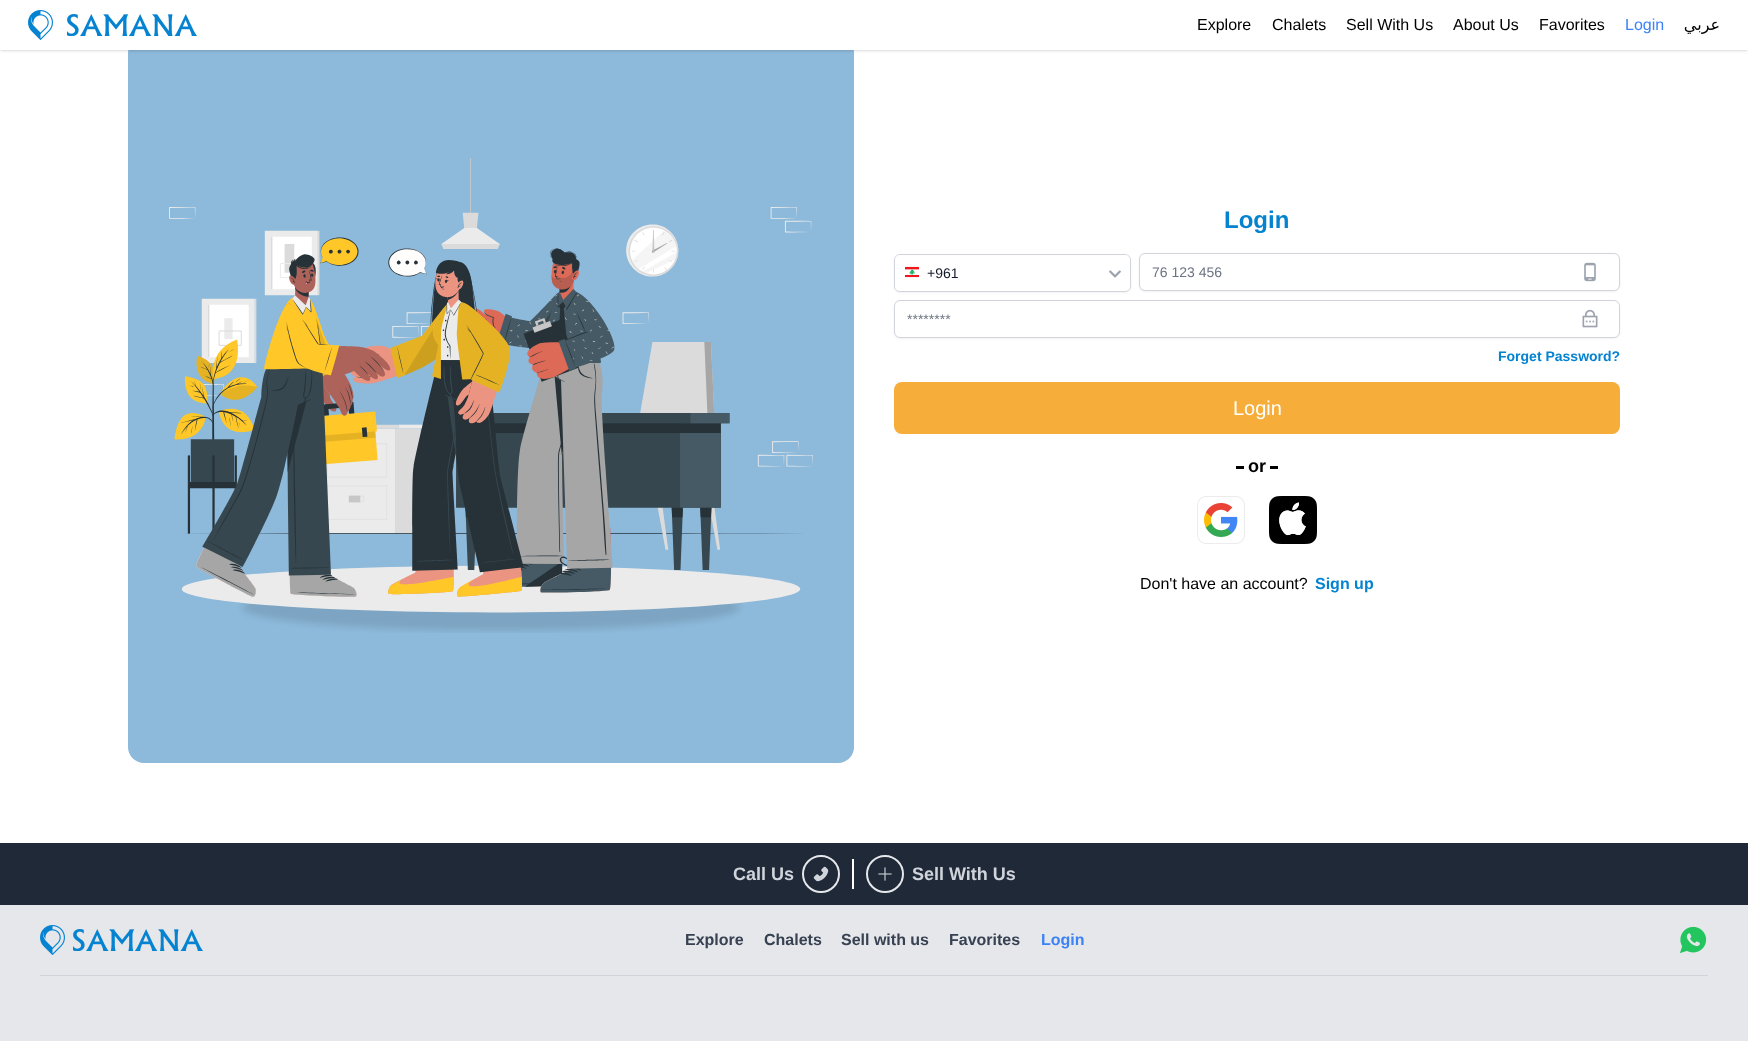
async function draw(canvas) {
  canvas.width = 1748
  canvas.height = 1041
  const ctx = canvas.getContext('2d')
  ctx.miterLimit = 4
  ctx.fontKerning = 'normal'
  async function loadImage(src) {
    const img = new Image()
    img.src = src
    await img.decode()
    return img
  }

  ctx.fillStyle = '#fff'
  ctx.fillRect(0, 0, 1748, 1041)
  ctx.fillStyle = '#8db9da'
  ctx.beginPath()
  ctx.roundRect(128, 37, 726, 726, 16)
  ctx.fill()
  ctx.fillStyle = '#0000001a'
  ctx.filter = 'blur(1px)'
  ctx.beginPath()
  ctx.rect(1, 2, 1746, 48)
  ctx.fill()
  ctx.filter = 'none'
  ctx.filter = 'blur(1.5px)'
  ctx.beginPath()
  ctx.rect(0, 1, 1748, 50)
  ctx.fill()
  ctx.filter = 'none'
  ctx.fillStyle = '#fff'
  ctx.fillRect(0, 0, 1748, 50)
  ctx.drawImage(await loadImage('image0.png'), 28, 10, 25, 30)
  ctx.drawImage(await loadImage('image1.png'), 67, 14, 130, 22)
  ctx.font = '16px Liberation Sans'
  ctx.fillStyle = '#000'
  ctx.fillText('Explore', 1197, 30)
  ctx.fillText('Chalets', 1272, 30)
  ctx.fillText('Sell With Us', 1346, 30)
  ctx.fillText('About Us', 1453, 30)
  ctx.fillText('Favorites', 1539, 30)
  ctx.fillStyle = '#3b82f6'
  ctx.fillText('Login', 1625, 30)
  ctx.direction = 'rtl'
  ctx.font = '16px DejaVu Sans'
  ctx.fillStyle = '#000'
  ctx.fillText('عربي', 1720, 30)
  ctx.drawImage(await loadImage('image2.png'), 169, 158, 644, 475)
  ctx.direction = 'ltr'
  ctx.font = 'bold 24px Liberation Sans'
  ctx.fillStyle = '#0583d1'
  ctx.fillText('Login', 1224, 228)
  ctx.fillStyle = '#0000000d'
  ctx.filter = 'blur(1px)'
  ctx.beginPath()
  ctx.roundRect(894, 255, 237, 38, 6)
  ctx.fill()
  ctx.filter = 'none'
  ctx.beginPath()
  ctx.roundRect(894.5, 254.5, 236, 37, 5.5)
  ctx.strokeStyle = '#d1d5db'
  ctx.stroke()
  ctx.fillStyle = '#fff'
  ctx.beginPath()
  ctx.roundRect(895, 255, 235, 36, 5)
  ctx.fill()
  ctx.drawImage(await loadImage('image3.png'), 905, 266, 14, 12)
  ctx.font = '14px Liberation Sans'
  ctx.fillStyle = '#111827'
  ctx.fillText('+961', 927, 278)
  ctx.drawImage(await loadImage('image4.png'), 1109, 270, 12, 8)
  ctx.fillStyle = '#0000000d'
  ctx.filter = 'blur(1px)'
  ctx.beginPath()
  ctx.roundRect(1139, 254, 481, 38, 6)
  ctx.fill()
  ctx.filter = 'none'
  ctx.fillStyle = '#fff'
  ctx.beginPath()
  ctx.roundRect(1139.5, 253.5, 480, 37, 5.5)
  ctx.fill()
  ctx.stroke()
  ctx.fillStyle = '#6b7280'
  ctx.fillText('76 123 456', 1152, 277)
  ctx.drawImage(await loadImage('image5.png'), 1584, 262, 12, 20)
  ctx.fillStyle = '#0000000d'
  ctx.filter = 'blur(1px)'
  ctx.beginPath()
  ctx.roundRect(894, 301, 726, 38, 6)
  ctx.fill()
  ctx.filter = 'none'
  ctx.fillStyle = '#fff'
  ctx.beginPath()
  ctx.roundRect(894.5, 300.5, 725, 37, 5.5)
  ctx.fill()
  ctx.stroke()
  ctx.fillStyle = '#6b7280'
  ctx.fillText('********', 907, 324)
  ctx.drawImage(await loadImage('image6.png'), 1582, 309, 16, 19)
  ctx.font = 'bold 14px Liberation Sans'
  ctx.fillStyle = '#0583d1'
  ctx.fillText('Forget Password?', 1498, 361)
  ctx.fillStyle = '#f6ad39'
  ctx.beginPath()
  ctx.roundRect(894, 382, 726, 52, 8)
  ctx.fill()
  ctx.font = '20px Liberation Sans'
  ctx.fillStyle = '#fff'
  ctx.fillText('Login', 1233, 415)
  ctx.fillStyle = '#000'
  ctx.fillRect(1236, 466, 8, 3)
  ctx.font = 'bold 18px Liberation Sans'
  ctx.fillText('or', 1248, 472)
  ctx.fillRect(1270, 466, 8, 3)
  ctx.drawImage(await loadImage('image7.png'), 1197, 496, 48, 48)
  ctx.drawImage(await loadImage('image8.png'), 1269, 496, 48, 48)
  ctx.font = '16px Liberation Sans'
  ctx.fillText('Don\'t have an account?', 1140, 589)
  ctx.font = 'bold 16px Liberation Sans'
  ctx.fillStyle = '#0583d1'
  ctx.fillText('Sign up', 1315, 589)
  ctx.fillStyle = '#1f2937'
  ctx.fillRect(0, 843, 1748, 62)
  ctx.font = 'bold 18px Liberation Sans'
  ctx.fillStyle = '#d1d5db'
  ctx.fillText('Call Us', 733, 880)
  ctx.beginPath()
  ctx.arc(821, 874, 18, 0, 2 * Math.PI)
  ctx.strokeStyle = '#e5e7eb'
  ctx.lineWidth = 2
  ctx.stroke()
  ctx.drawImage(await loadImage('image9.png'), 813, 866, 16, 16)
  ctx.fillStyle = '#fff'
  ctx.fillRect(852, 859, 2, 30)
  ctx.beginPath()
  ctx.arc(885, 874, 18, 0, 2 * Math.PI)
  ctx.stroke()
  ctx.drawImage(await loadImage('image10.png'), 878, 867, 14, 14)
  ctx.fillStyle = '#d1d5db'
  ctx.fillText('Sell With Us', 912, 880)
  ctx.fillStyle = '#e5e7eb'
  ctx.fillRect(0, 905, 1748, 136)
  ctx.drawImage(await loadImage('image11.png'), 40, 925, 25, 30)
  ctx.drawImage(await loadImage('image12.png'), 73, 929, 130, 22)
  ctx.font = 'bold 16px Liberation Sans'
  ctx.fillStyle = '#374151'
  ctx.fillText('Explore', 685, 945)
  ctx.fillText('Chalets', 764, 945)
  ctx.fillText('Sell with us', 841, 945)
  ctx.fillText('Favorites', 949, 945)
  ctx.fillStyle = '#3b82f6'
  ctx.fillText('Login', 1041, 945)
  ctx.drawImage(await loadImage('image13.png'), 1680, 926, 27, 27)
  ctx.fillStyle = '#d1d5db'
  ctx.fillRect(40, 975, 1668, 1)
}

draw(document.querySelector('canvas'))
